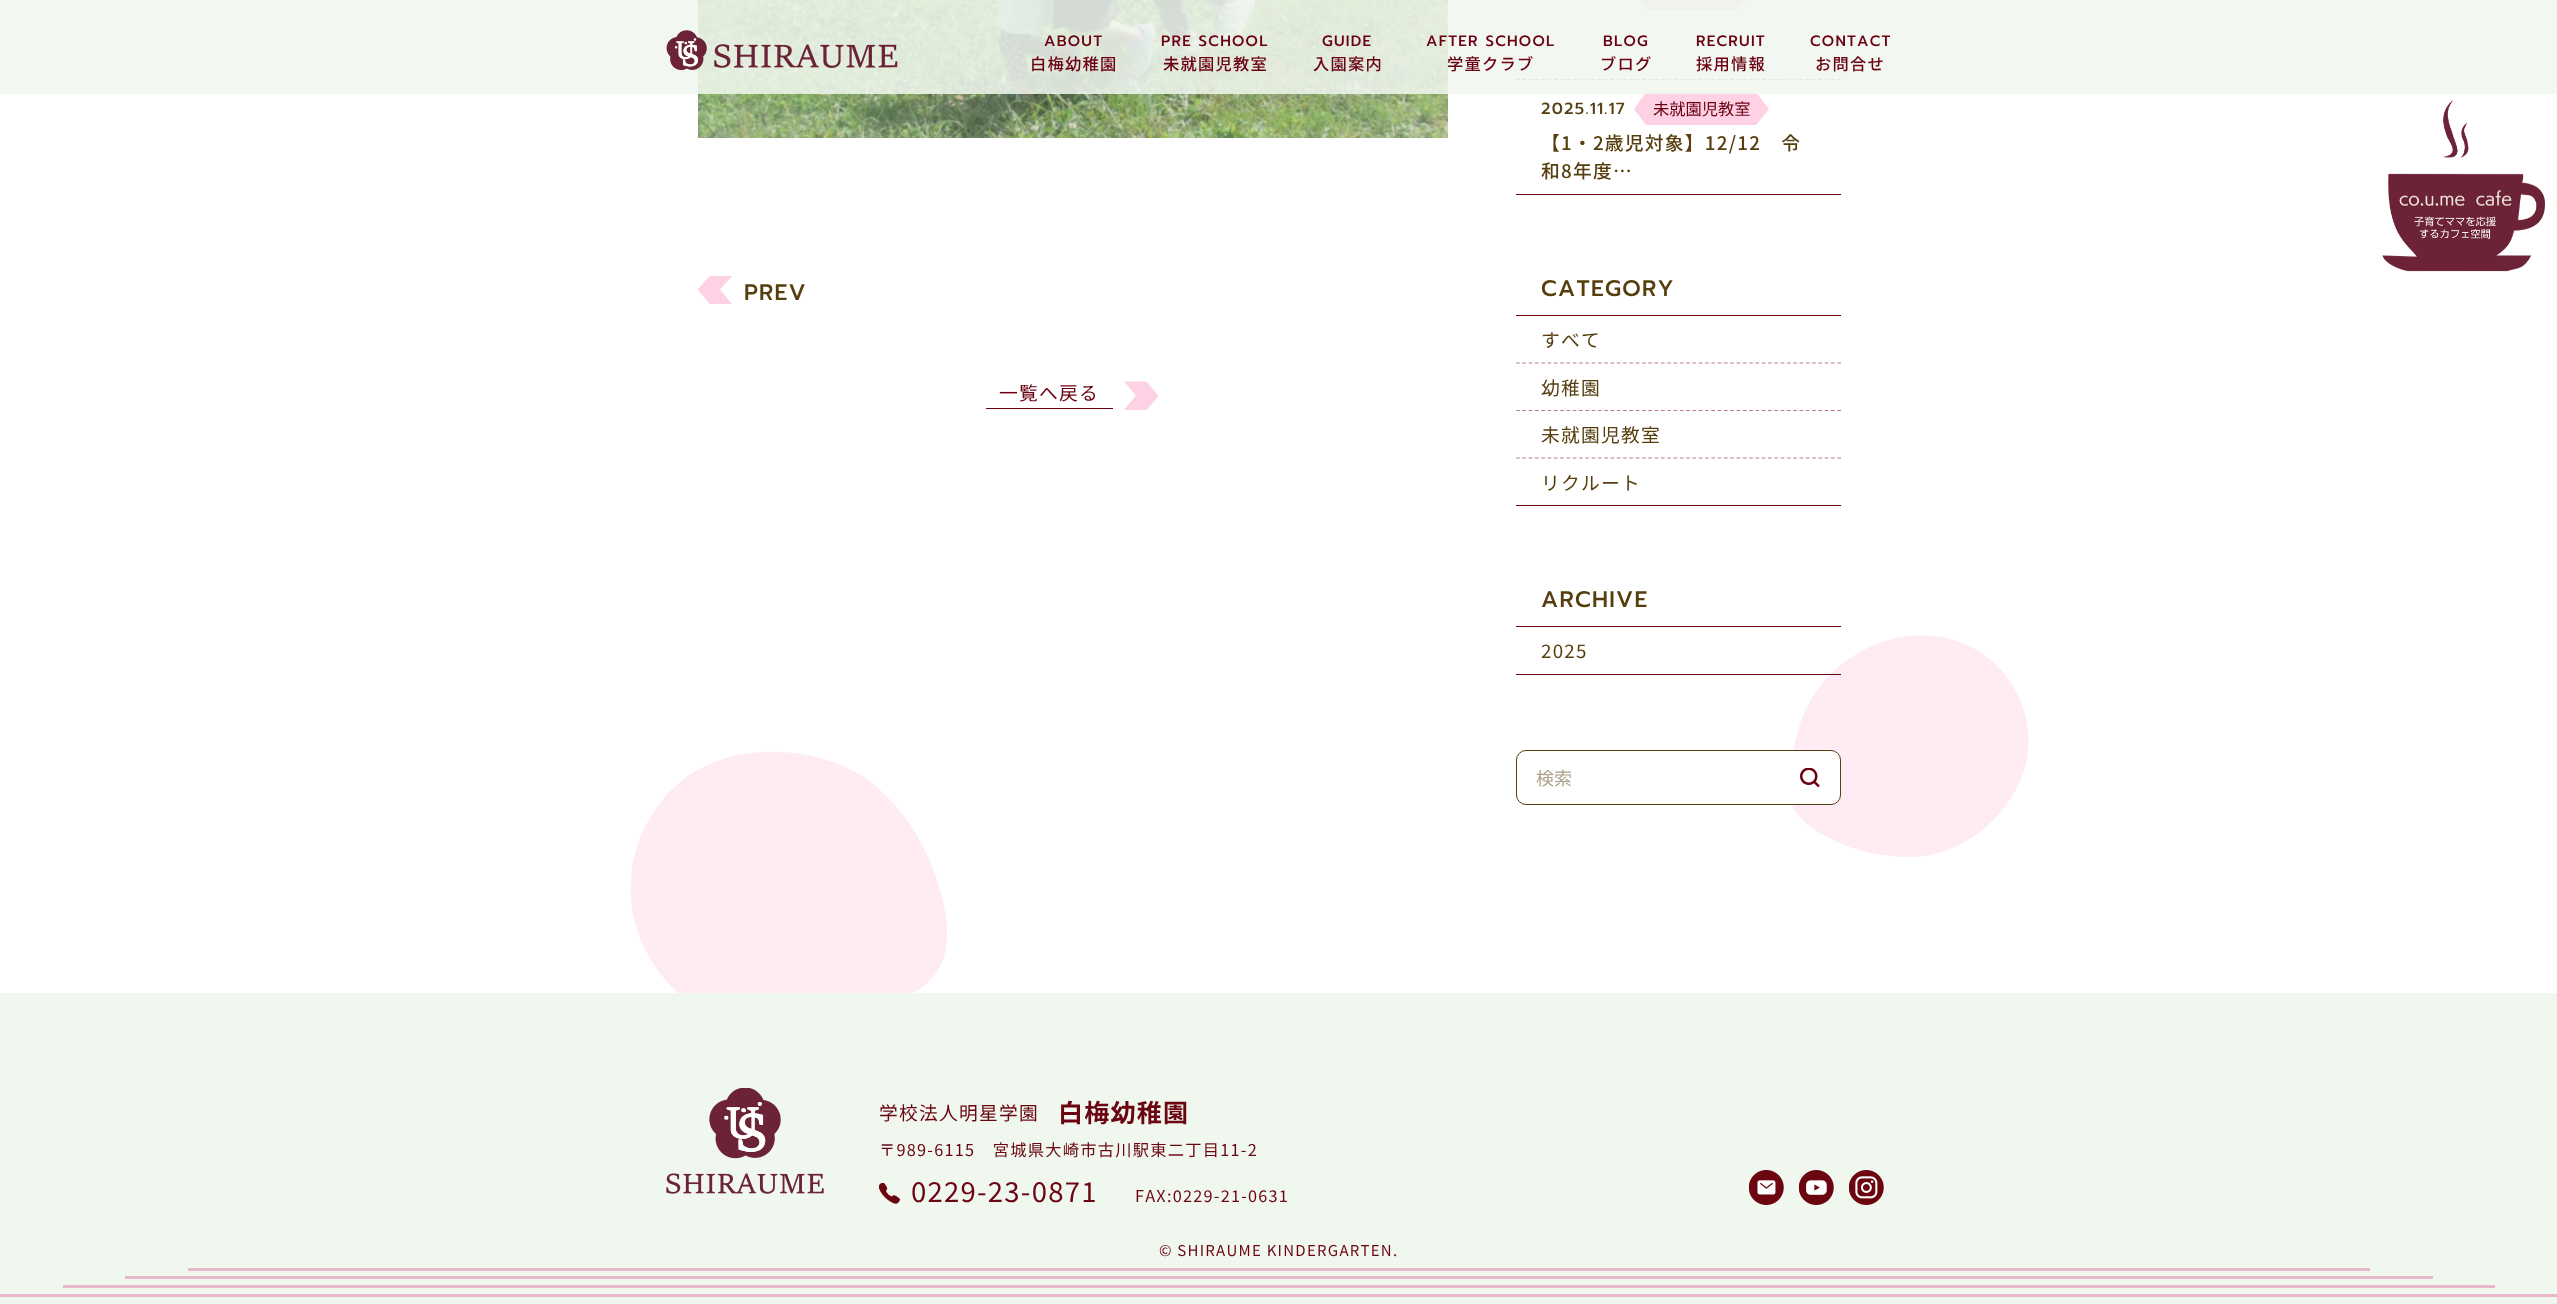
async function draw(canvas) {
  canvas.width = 2557
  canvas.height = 1304
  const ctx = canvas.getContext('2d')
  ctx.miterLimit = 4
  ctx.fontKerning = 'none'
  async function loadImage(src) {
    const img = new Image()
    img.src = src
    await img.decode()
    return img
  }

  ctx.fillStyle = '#fff'
  ctx.fillRect(0, 0, 2557, 1304)
  ctx.drawImage(await loadImage('image1.png'), 698, 0, 750, 138)
  ctx.beginPath()
  ctx.moveTo(1516, 79.5)
  ctx.lineTo(1841, 79.5)
  ctx.strokeStyle = '#b47f87'
  ctx.lineWidth = 1.2
  ctx.setLineDash([3.75, 2.55])
  ctx.stroke()
  ctx.fillStyle = '#fed1e4'
  ctx.fillRect(1648, 0, 90, 10)
  ctx.beginPath()
  ctx.moveTo(1647.5, -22.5)
  ctx.lineTo(1647.5, 10)
  ctx.lineTo(1635, -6)
  ctx.closePath()
  ctx.fill()
  ctx.beginPath()
  ctx.moveTo(1737.5, 10)
  ctx.lineTo(1737.5, -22.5)
  ctx.lineTo(1750, -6)
  ctx.closePath()
  ctx.fill()
  ctx.fillRect(1646, 93, 110, 32)
  ctx.beginPath()
  ctx.moveTo(1646, 92.5)
  ctx.lineTo(1646, 125)
  ctx.lineTo(1634, 109)
  ctx.closePath()
  ctx.fill()
  ctx.beginPath()
  ctx.moveTo(1756, 125)
  ctx.lineTo(1756, 92.5)
  ctx.lineTo(1769, 109)
  ctx.closePath()
  ctx.fill()
  ctx.fillStyle = '#f0f7efdb'
  ctx.fillRect(0, 0, 2557, 94)
  ctx.drawImage(await loadImage('image0.png'), 666, 30, 232, 41)
  ctx.letterSpacing = '1.25px'
  ctx.font = '500 15px Prompt'
  ctx.fillStyle = '#6b0011'
  ctx.fillText('ABOUT', 1044, 46)
  ctx.font = '500 16.25px Noto Sans JP'
  ctx.fillText('白梅幼稚園', 1030, 70)
  ctx.font = '500 15px Prompt'
  ctx.fillText('PRE SCHOOL', 1161, 46)
  ctx.font = '500 16.25px Noto Sans JP'
  ctx.fillText('未就園児教室', 1163, 70)
  ctx.font = '500 15px Prompt'
  ctx.fillText('GUIDE', 1322, 46)
  ctx.font = '500 16.25px Noto Sans JP'
  ctx.fillText('入園案内', 1313, 70)
  ctx.font = '500 15px Prompt'
  ctx.fillText('AFTER SCHOOL', 1426, 46)
  ctx.font = '500 16.25px Noto Sans JP'
  ctx.fillText('学童クラブ', 1447, 70)
  ctx.font = '500 15px Prompt'
  ctx.fillText('BLOG', 1603, 46)
  ctx.font = '500 16.25px Noto Sans JP'
  ctx.fillText('ブログ', 1600, 70)
  ctx.font = '500 15px Prompt'
  ctx.fillText('RECRUIT', 1696, 46)
  ctx.font = '500 16.25px Noto Sans JP'
  ctx.fillText('採用情報', 1696, 70)
  ctx.font = '500 15px Prompt'
  ctx.fillText('CONTACT', 1810, 46)
  ctx.font = '500 16.25px Noto Sans JP'
  ctx.fillText('お問合せ', 1815, 70)
  ctx.save()
  ctx.beginPath()
  ctx.rect(698, 276, 35, 29)
  ctx.clip()
  ctx.fillStyle = '#fed1e4'
  ctx.beginPath()
  ctx.moveTo(710, 275.5)
  ctx.lineTo(732.5, 275.5)
  ctx.lineTo(720, 289.5)
  ctx.lineTo(732, 304)
  ctx.lineTo(709.5, 304)
  ctx.lineTo(697.5, 289.5)
  ctx.closePath()
  ctx.fill('evenodd')
  ctx.restore()
  ctx.font = '500 22.5px Prompt'
  ctx.fillStyle = '#563e0e'
  ctx.fillText('PREV', 744, 300)
  ctx.font = '18.75px Noto Sans JP'
  ctx.fillStyle = '#6b0011'
  ctx.fillText('一覧へ戻る', 999, 400)
  ctx.fillRect(986, 408, 127, 1)
  ctx.fillStyle = '#fed1e4'
  ctx.beginPath()
  ctx.moveTo(1146.5, 410)
  ctx.lineTo(1124, 410)
  ctx.lineTo(1136, 395.5)
  ctx.lineTo(1124, 381.5)
  ctx.lineTo(1146.5, 381.5)
  ctx.lineTo(1158.5, 396)
  ctx.closePath()
  ctx.fill('evenodd')
  ctx.fillStyle = '#6b0011'
  ctx.fillRect(1516, 194, 325, 1)
  ctx.font = '500 16.25px Prompt'
  ctx.fillStyle = '#563e0e'
  ctx.fillText('2025.11.17', 1541, 114)
  ctx.letterSpacing = '0px'
  ctx.font = '16.25px Noto Sans JP'
  ctx.fillStyle = '#6b0011'
  ctx.fillText('未就園児教室', 1653, 115)
  ctx.letterSpacing = '1.25px'
  ctx.font = '500 18.75px Noto Sans JP'
  ctx.fillStyle = '#563e0e'
  ctx.fillText('【1・2歳児対象】12/12　令', 1541, 150)
  ctx.fillText('和8年度…', 1541, 178)
  ctx.fillStyle = '#6b0011'
  ctx.fillRect(1516, 505, 325, 1)
  ctx.fillRect(1516, 315, 325, 1)
  ctx.font = '500 22.5px Prompt'
  ctx.fillStyle = '#563e0e'
  ctx.fillText('CATEGORY', 1541, 296)
  ctx.font = '18.75px Noto Sans JP'
  ctx.fillText('すべて', 1541, 347)
  ctx.beginPath()
  ctx.moveTo(1516, 363)
  ctx.lineTo(1841, 363)
  ctx.stroke()
  ctx.fillText('幼稚園', 1541, 395)
  ctx.beginPath()
  ctx.moveTo(1516, 410.5)
  ctx.lineTo(1841, 410.5)
  ctx.stroke()
  ctx.fillText('未就園児教室', 1541, 442)
  ctx.beginPath()
  ctx.moveTo(1516, 458)
  ctx.lineTo(1841, 458)
  ctx.stroke()
  ctx.fillText('リクルート', 1541, 490)
  ctx.fillStyle = '#feebf4'
  ctx.beginPath()
  ctx.moveTo(1846, 661)
  ctx.bezierCurveTo(1882, 634, 1933, 626, 1973, 648)
  ctx.bezierCurveTo(2013, 669, 2037, 719, 2026, 763)
  ctx.bezierCurveTo(2014, 814, 1963, 857, 1910, 857)
  ctx.bezierCurveTo(1881, 857, 1854, 851, 1829, 838)
  ctx.bezierCurveTo(1804, 825, 1784, 807, 1789, 779)
  ctx.bezierCurveTo(1795, 752, 1793, 701, 1846, 661)
  ctx.closePath()
  ctx.fill()
  ctx.fillStyle = '#6b0011'
  ctx.fillRect(1516, 674, 325, 1)
  ctx.fillRect(1516, 626, 325, 1)
  ctx.font = '500 22.5px Prompt'
  ctx.fillStyle = '#563e0e'
  ctx.fillText('ARCHIVE', 1541, 607)
  ctx.font = '18.75px Noto Sans JP'
  ctx.fillText('2025', 1541, 658)
  ctx.fillStyle = '#fff'
  ctx.beginPath()
  ctx.roundRect(1516.5, 750.5, 324, 54, 9.5)
  ctx.fill()
  ctx.strokeStyle = '#563e0e'
  ctx.lineWidth = 1
  ctx.setLineDash([])
  ctx.stroke()
  ctx.letterSpacing = '0px'
  ctx.font = '18px Noto Sans JP'
  ctx.fillStyle = '#ab9f87'
  ctx.fillText('検索', 1536, 785)
  ctx.drawImage(await loadImage('image2.png'), 1800, 768, 20, 20)
  ctx.fillStyle = '#feebf4'
  ctx.beginPath()
  ctx.moveTo(753, 1032)
  ctx.bezierCurveTo(796, 1042, 836, 1035, 875, 1015)
  ctx.lineTo(918, 990)
  ctx.bezierCurveTo(950, 970, 951, 935, 943, 901)
  ctx.bezierCurveTo(936, 870, 923, 841, 903, 815)
  ctx.lineTo(894, 804)
  ctx.lineTo(876, 786)
  ctx.bezierCurveTo(849, 764, 814, 753, 779, 752)
  ctx.bezierCurveTo(726, 750, 679, 770, 652, 815)
  ctx.bezierCurveTo(639, 834, 632, 858, 631, 881)
  ctx.bezierCurveTo(628, 923, 646, 962, 676, 991)
  ctx.bezierCurveTo(697, 1011, 724, 1026, 753, 1032)
  ctx.closePath()
  ctx.fill()
  ctx.fillStyle = '#f0f7ef'
  ctx.fillRect(0, 993, 2557, 311)
  ctx.drawImage(await loadImage('image3.png'), 666, 1088, 158, 106)
  ctx.letterSpacing = '1.25px'
  ctx.font = '18.75px Noto Sans JP'
  ctx.fillStyle = '#6b0611'
  ctx.fillText('学校法人明星学園', 879, 1120)
  ctx.font = 'bold 25px Noto Sans JP'
  ctx.fillText('白梅幼稚園', 1058, 1122)
  ctx.font = '16.25px Noto Sans JP'
  ctx.fillText('〒989-6115　宮城県大崎市古川駅東二丁目11-2', 879, 1156)
  ctx.drawImage(await loadImage('image4.png'), 879, 1183, 21, 21)
  ctx.font = '27.5px Noto Sans JP'
  ctx.fillText('0229-23-0871', 911, 1202)
  ctx.font = '16.25px Noto Sans JP'
  ctx.fillText('FAX:0229-21-0631', 1135, 1202)
  ctx.drawImage(await loadImage('image5.png'), 1749, 1170, 35, 35)
  ctx.drawImage(await loadImage('image6.png'), 1799, 1170, 35, 35)
  ctx.drawImage(await loadImage('image7.png'), 1849, 1170, 35, 35)
  ctx.font = '15px Noto Sans JP'
  ctx.fillText('© SHIRAUME KINDERGARTEN.', 1159, 1256)
  ctx.fillStyle = '#e9b7c9'
  ctx.fillRect(188, 1268, 2182, 3)
  ctx.fillRect(125, 1276, 2308, 3)
  ctx.fillRect(63, 1285, 2432, 3)
  ctx.fillRect(0, 1294, 2557, 3)
  ctx.drawImage(await loadImage('image8.png'), 2382, 100, 163, 172)
}

draw(document.querySelector('canvas'))
